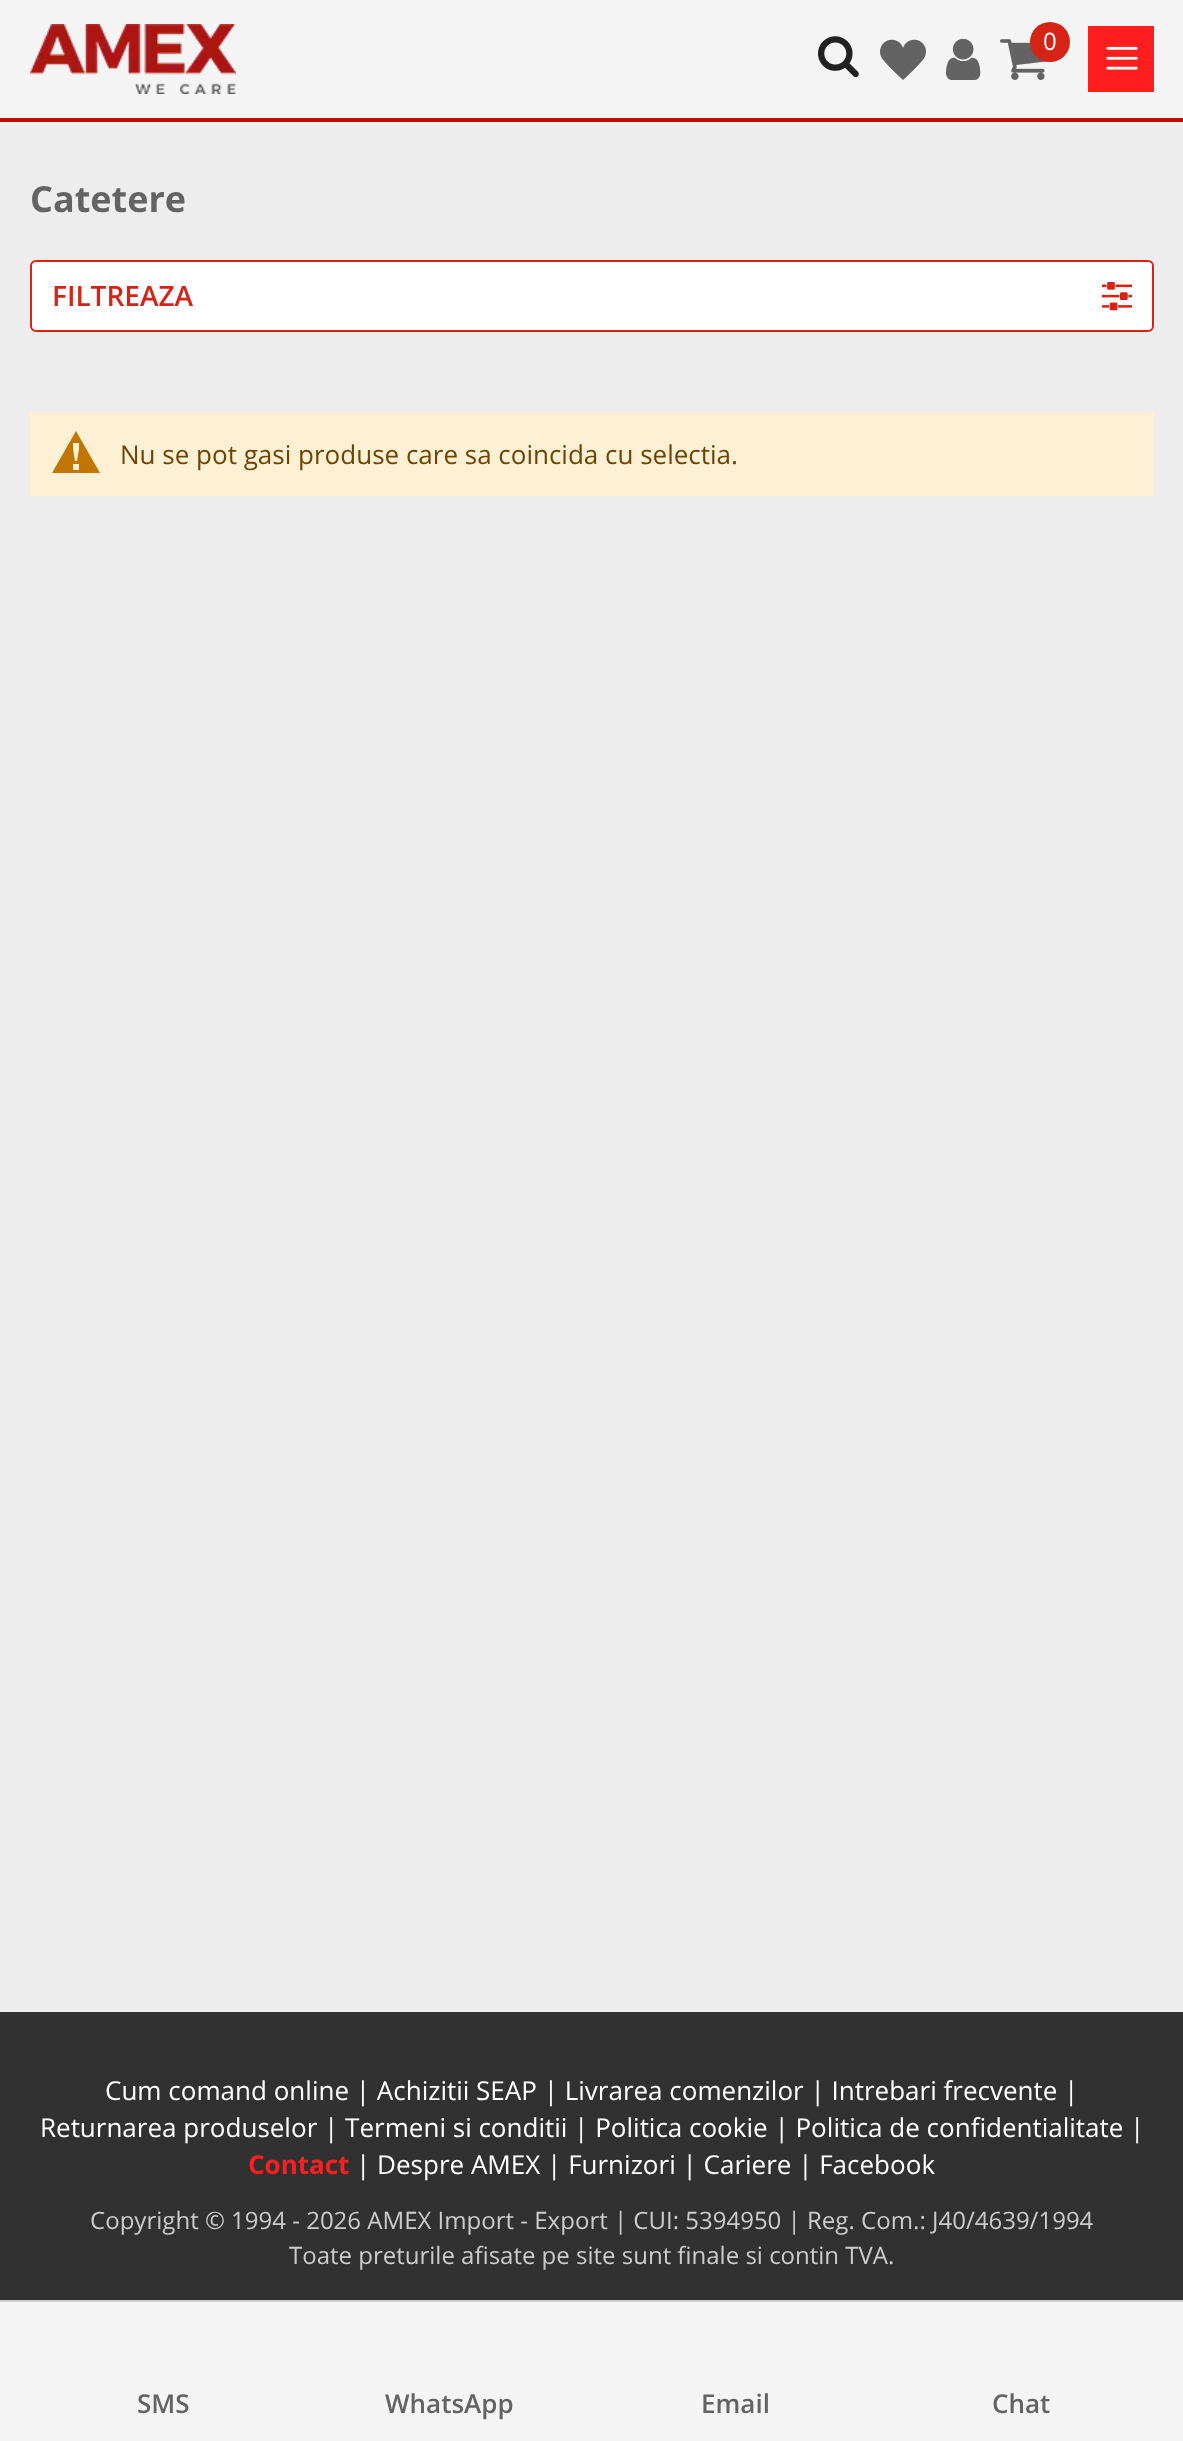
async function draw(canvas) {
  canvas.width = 1183
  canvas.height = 2441
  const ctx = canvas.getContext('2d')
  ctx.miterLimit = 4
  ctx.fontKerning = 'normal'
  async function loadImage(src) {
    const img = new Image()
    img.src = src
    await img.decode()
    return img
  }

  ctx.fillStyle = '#ededed'
  ctx.fillRect(0, 0, 1183, 2441)
  ctx.fillStyle = '#f4f4f4'
  ctx.fillRect(0, 0, 1183, 118)
  ctx.drawImage(await loadImage('image0.png'), 30, 24, 206, 70)
  ctx.drawImage(await loadImage('image1.png'), 818, 36, 41, 42)
  ctx.drawImage(await loadImage('image2.png'), 880, 39, 46, 41)
  ctx.drawImage(await loadImage('image3.png'), 946, 38, 35, 42)
  ctx.drawImage(await loadImage('image4.png'), 1000, 39, 48, 41)
  ctx.fillStyle = '#d52315'
  ctx.beginPath()
  ctx.arc(1050, 42, 20, 0, 2 * Math.PI)
  ctx.fill()
  ctx.font = '24px Open Sans'
  ctx.fillStyle = '#fff'
  ctx.fillText('0', 1043, 50)
  ctx.fillStyle = '#ff1e1e'
  ctx.fillRect(1088, 26, 66, 66)
  ctx.drawImage(await loadImage('image5.png'), 1106, 46, 32, 24)
  ctx.fillStyle = '#c00c00'
  ctx.fillRect(0, 118, 1183, 4)
  ctx.font = 'bold 36px Open Sans'
  ctx.fillStyle = '#636363'
  ctx.fillText('Catetere', 30, 212)
  ctx.fillStyle = '#fff'
  ctx.beginPath()
  ctx.roundRect(31, 261, 1122, 70, 5)
  ctx.fill()
  ctx.strokeStyle = '#d52315'
  ctx.lineWidth = 2
  ctx.stroke()
  ctx.font = '600 28px Open Sans'
  ctx.fillStyle = '#d52315'
  ctx.fillText('FILTREAZA', 52, 306)
  ctx.drawImage(await loadImage('image6.png'), 1102, 282, 30, 29)
  ctx.fillStyle = '#fdf0d5'
  ctx.fillRect(30, 412, 1124, 84)
  ctx.fillStyle = '#c07600'
  ctx.beginPath()
  ctx.moveTo(76, 431)
  ctx.lineTo(52, 473)
  ctx.lineTo(100, 473)
  ctx.closePath()
  ctx.moveTo(79, 443)
  ctx.lineTo(79, 449)
  ctx.lineTo(77, 461)
  ctx.lineTo(75, 461)
  ctx.lineTo(73, 449)
  ctx.lineTo(73, 443)
  ctx.closePath()
  ctx.moveTo(73, 470)
  ctx.lineTo(73, 464)
  ctx.lineTo(79, 464)
  ctx.lineTo(79, 470)
  ctx.closePath()
  ctx.fill()
  ctx.font = '26px Open Sans'
  ctx.fillStyle = '#6f4400'
  ctx.fillText('Nu se pot gasi produse care sa coincida cu selectia.', 120, 464)
  ctx.fillStyle = '#313131'
  ctx.fillRect(0, 2012, 1183, 288)
  ctx.fillStyle = '#fff'
  ctx.fillText('Cum comand online | Achizitii SEAP | Livrarea comenzilor | Intrebari frecvente |', 105, 2100)
  ctx.fillText('Returnarea produselor | Termeni si conditii | Politica cookie | Politica de confidentialitate |', 40, 2137)
  ctx.font = 'bold 26px Open Sans'
  ctx.fillStyle = '#ff1e1e'
  ctx.fillText('Contact', 248, 2174)
  ctx.font = '26px Open Sans'
  ctx.fillStyle = '#fff'
  ctx.fillText('| Despre AMEX | Furnizori | Cariere | Facebook', 356, 2174)
  ctx.font = '24px Open Sans'
  ctx.fillStyle = '#ccc'
  ctx.fillText('Copyright © 1994 - 2026 AMEX Import - Export | CUI: 5394950 | Reg. Com.: J40/4639/1994', 90, 2229)
  ctx.fillText('Toate preturile afisate pe site sunt finale si contin TVA.', 289, 2264)
  ctx.fillStyle = '#f4f4f4'
  ctx.fillRect(0, 2302, 1183, 139)
  ctx.fillStyle = '#ccc'
  ctx.fillRect(0, 2300, 1183, 2)
  ctx.font = '600 26px Open Sans'
  ctx.fillStyle = '#636363'
  ctx.fillText('SMS', 137, 2413)
  ctx.fillText('WhatsApp', 385, 2413)
  ctx.fillText('Email', 701, 2413)
  ctx.fillText('Chat', 992, 2413)
}

draw(document.querySelector('canvas'))
